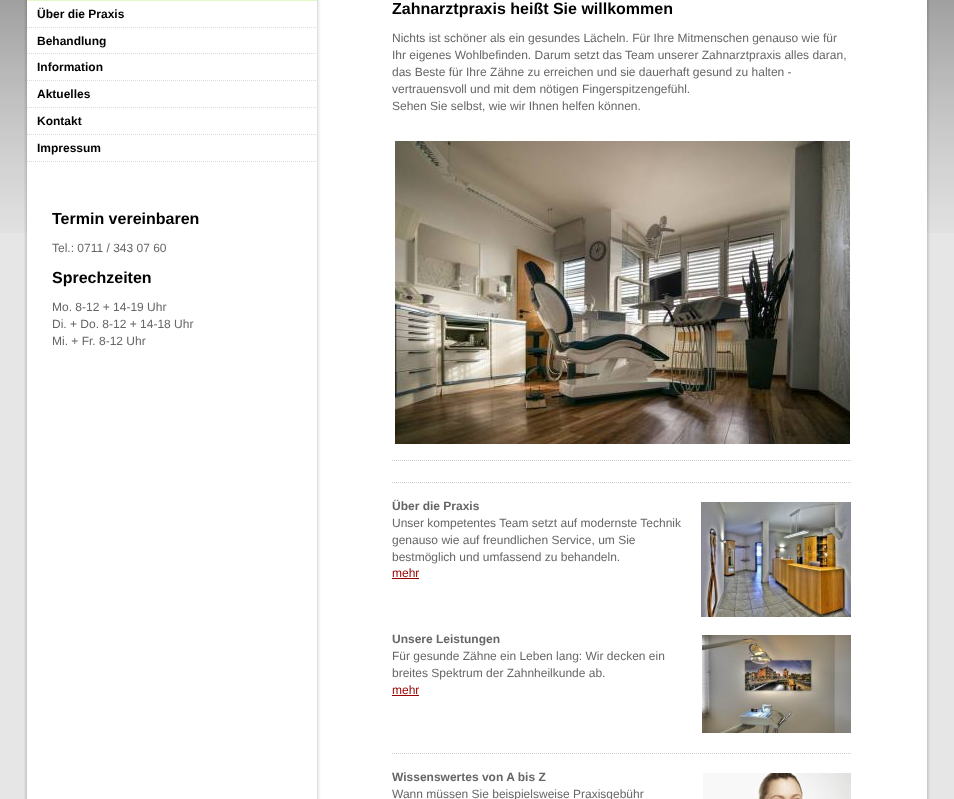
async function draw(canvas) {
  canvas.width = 954
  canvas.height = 799
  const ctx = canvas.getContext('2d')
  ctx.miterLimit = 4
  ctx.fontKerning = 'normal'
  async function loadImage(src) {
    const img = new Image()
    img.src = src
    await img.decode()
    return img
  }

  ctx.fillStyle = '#e6e6e6'
  ctx.fillRect(0, 0, 954, 799)
  ctx.drawImage(await loadImage('image0.png'), 0, 0, 954, 233)
  ctx.drawImage(await loadImage('image1.png'), 24, 0, 906, 799)
  ctx.fillStyle = '#e2f9c5'
  ctx.fillRect(27, 0, 290, 1)
  ctx.drawImage(await loadImage('image2.png'), 27, 27, 289, 1)
  ctx.font = 'bold 12px Liberation Sans'
  ctx.fillStyle = '#000'
  ctx.fillText('Über die Praxis', 37, 18)
  ctx.drawImage(await loadImage('image2.png'), 27, 53, 289, 1)
  ctx.fillText('Behandlung', 37, 45)
  ctx.drawImage(await loadImage('image2.png'), 27, 80, 289, 1)
  ctx.fillText('Information', 37, 71)
  ctx.drawImage(await loadImage('image2.png'), 27, 107, 289, 1)
  ctx.fillText('Aktuelles', 37, 98)
  ctx.drawImage(await loadImage('image2.png'), 27, 134, 289, 1)
  ctx.fillText('Kontakt', 37, 125)
  ctx.drawImage(await loadImage('image2.png'), 27, 161, 289, 1)
  ctx.fillText('Impressum', 37, 152)
  ctx.font = 'bold 16px Liberation Sans'
  ctx.fillText('Termin vereinbaren', 52, 224)
  ctx.font = '12px Liberation Sans'
  ctx.fillStyle = '#666'
  ctx.fillText('Tel.: 0711 / 343 07 60', 52, 252)
  ctx.font = 'bold 16px Liberation Sans'
  ctx.fillStyle = '#000'
  ctx.fillText('Sprechzeiten', 52, 283)
  ctx.font = '12px Liberation Sans'
  ctx.fillStyle = '#666'
  ctx.fillText('Mo. 8-12 + 14-19 Uhr', 52, 311)
  ctx.fillText('Di. + Do. 8-12 + 14-18 Uhr', 52, 328)
  ctx.fillText('Mi. + Fr. 8-12 Uhr', 52, 345)
  ctx.font = 'bold 16px Liberation Sans'
  ctx.fillStyle = '#000'
  ctx.fillText('Zahnarztpraxis heißt Sie willkommen', 392, 14)
  ctx.font = '12px Liberation Sans'
  ctx.fillStyle = '#666'
  ctx.fillText('Nichts ist schöner als ein gesundes Lächeln. Für Ihre Mitmenschen genauso wie für', 392, 42)
  ctx.fillText('Ihr eigenes Wohlbefinden. Darum setzt das Team unserer Zahnarztpraxis alles daran,', 392, 59)
  ctx.fillText('das Beste für Ihre Zähne zu erreichen und sie dauerhaft gesund zu halten -', 392, 76)
  ctx.fillText('vertrauensvoll und mit dem nötigen Fingerspitzengefühl.', 392, 93)
  ctx.fillText('Sehen Sie selbst, wie wir Ihnen helfen können.', 392, 110)
  ctx.drawImage(await loadImage('image3.png'), 395, 141, 455, 303)
  ctx.beginPath()
  ctx.moveTo(392, 460.5)
  ctx.lineTo(852, 460.5)
  ctx.strokeStyle = '#ccc'
  ctx.setLineDash([1, 1])
  ctx.stroke()
  ctx.beginPath()
  ctx.moveTo(392, 482.5)
  ctx.lineTo(852, 482.5)
  ctx.stroke()
  ctx.font = 'bold 12px Liberation Sans'
  ctx.fillText('Über die Praxis', 392, 510)
  ctx.font = '12px Liberation Sans'
  ctx.fillText('Unser kompetentes Team setzt auf modernste Technik', 392, 527)
  ctx.fillText('genauso wie auf freundlichen Service, um Sie', 392, 544)
  ctx.fillText('bestmöglich und umfassend zu behandeln.', 392, 561)
  ctx.fillStyle = '#900'
  ctx.fillText('mehr', 392, 577)
  ctx.fillRect(392, 578, 27, 1)
  ctx.drawImage(await loadImage('image4.png'), 701, 502, 150, 115)
  ctx.font = 'bold 12px Liberation Sans'
  ctx.fillStyle = '#666'
  ctx.fillText('Unsere Leistungen', 392, 643)
  ctx.font = '12px Liberation Sans'
  ctx.fillText('Für gesunde Zähne ein Leben lang: Wir decken ein', 392, 660)
  ctx.fillText('breites Spektrum der Zahnheilkunde ab.', 392, 677)
  ctx.fillStyle = '#900'
  ctx.fillText('mehr', 392, 694)
  ctx.fillRect(392, 695, 27, 1)
  ctx.drawImage(await loadImage('image5.png'), 702, 635, 149, 98)
  ctx.beginPath()
  ctx.moveTo(392, 753.5)
  ctx.lineTo(852, 753.5)
  ctx.stroke()
  ctx.font = 'bold 12px Liberation Sans'
  ctx.fillStyle = '#666'
  ctx.fillText('Wissenswertes von A bis Z', 392, 781)
  ctx.font = '12px Liberation Sans'
  ctx.fillText('Wann müssen Sie beispielsweise Praxisgebühr', 392, 798)
  ctx.drawImage(await loadImage('image6.png'), 703, 773, 148, 26)
}

draw(document.querySelector('canvas'))
